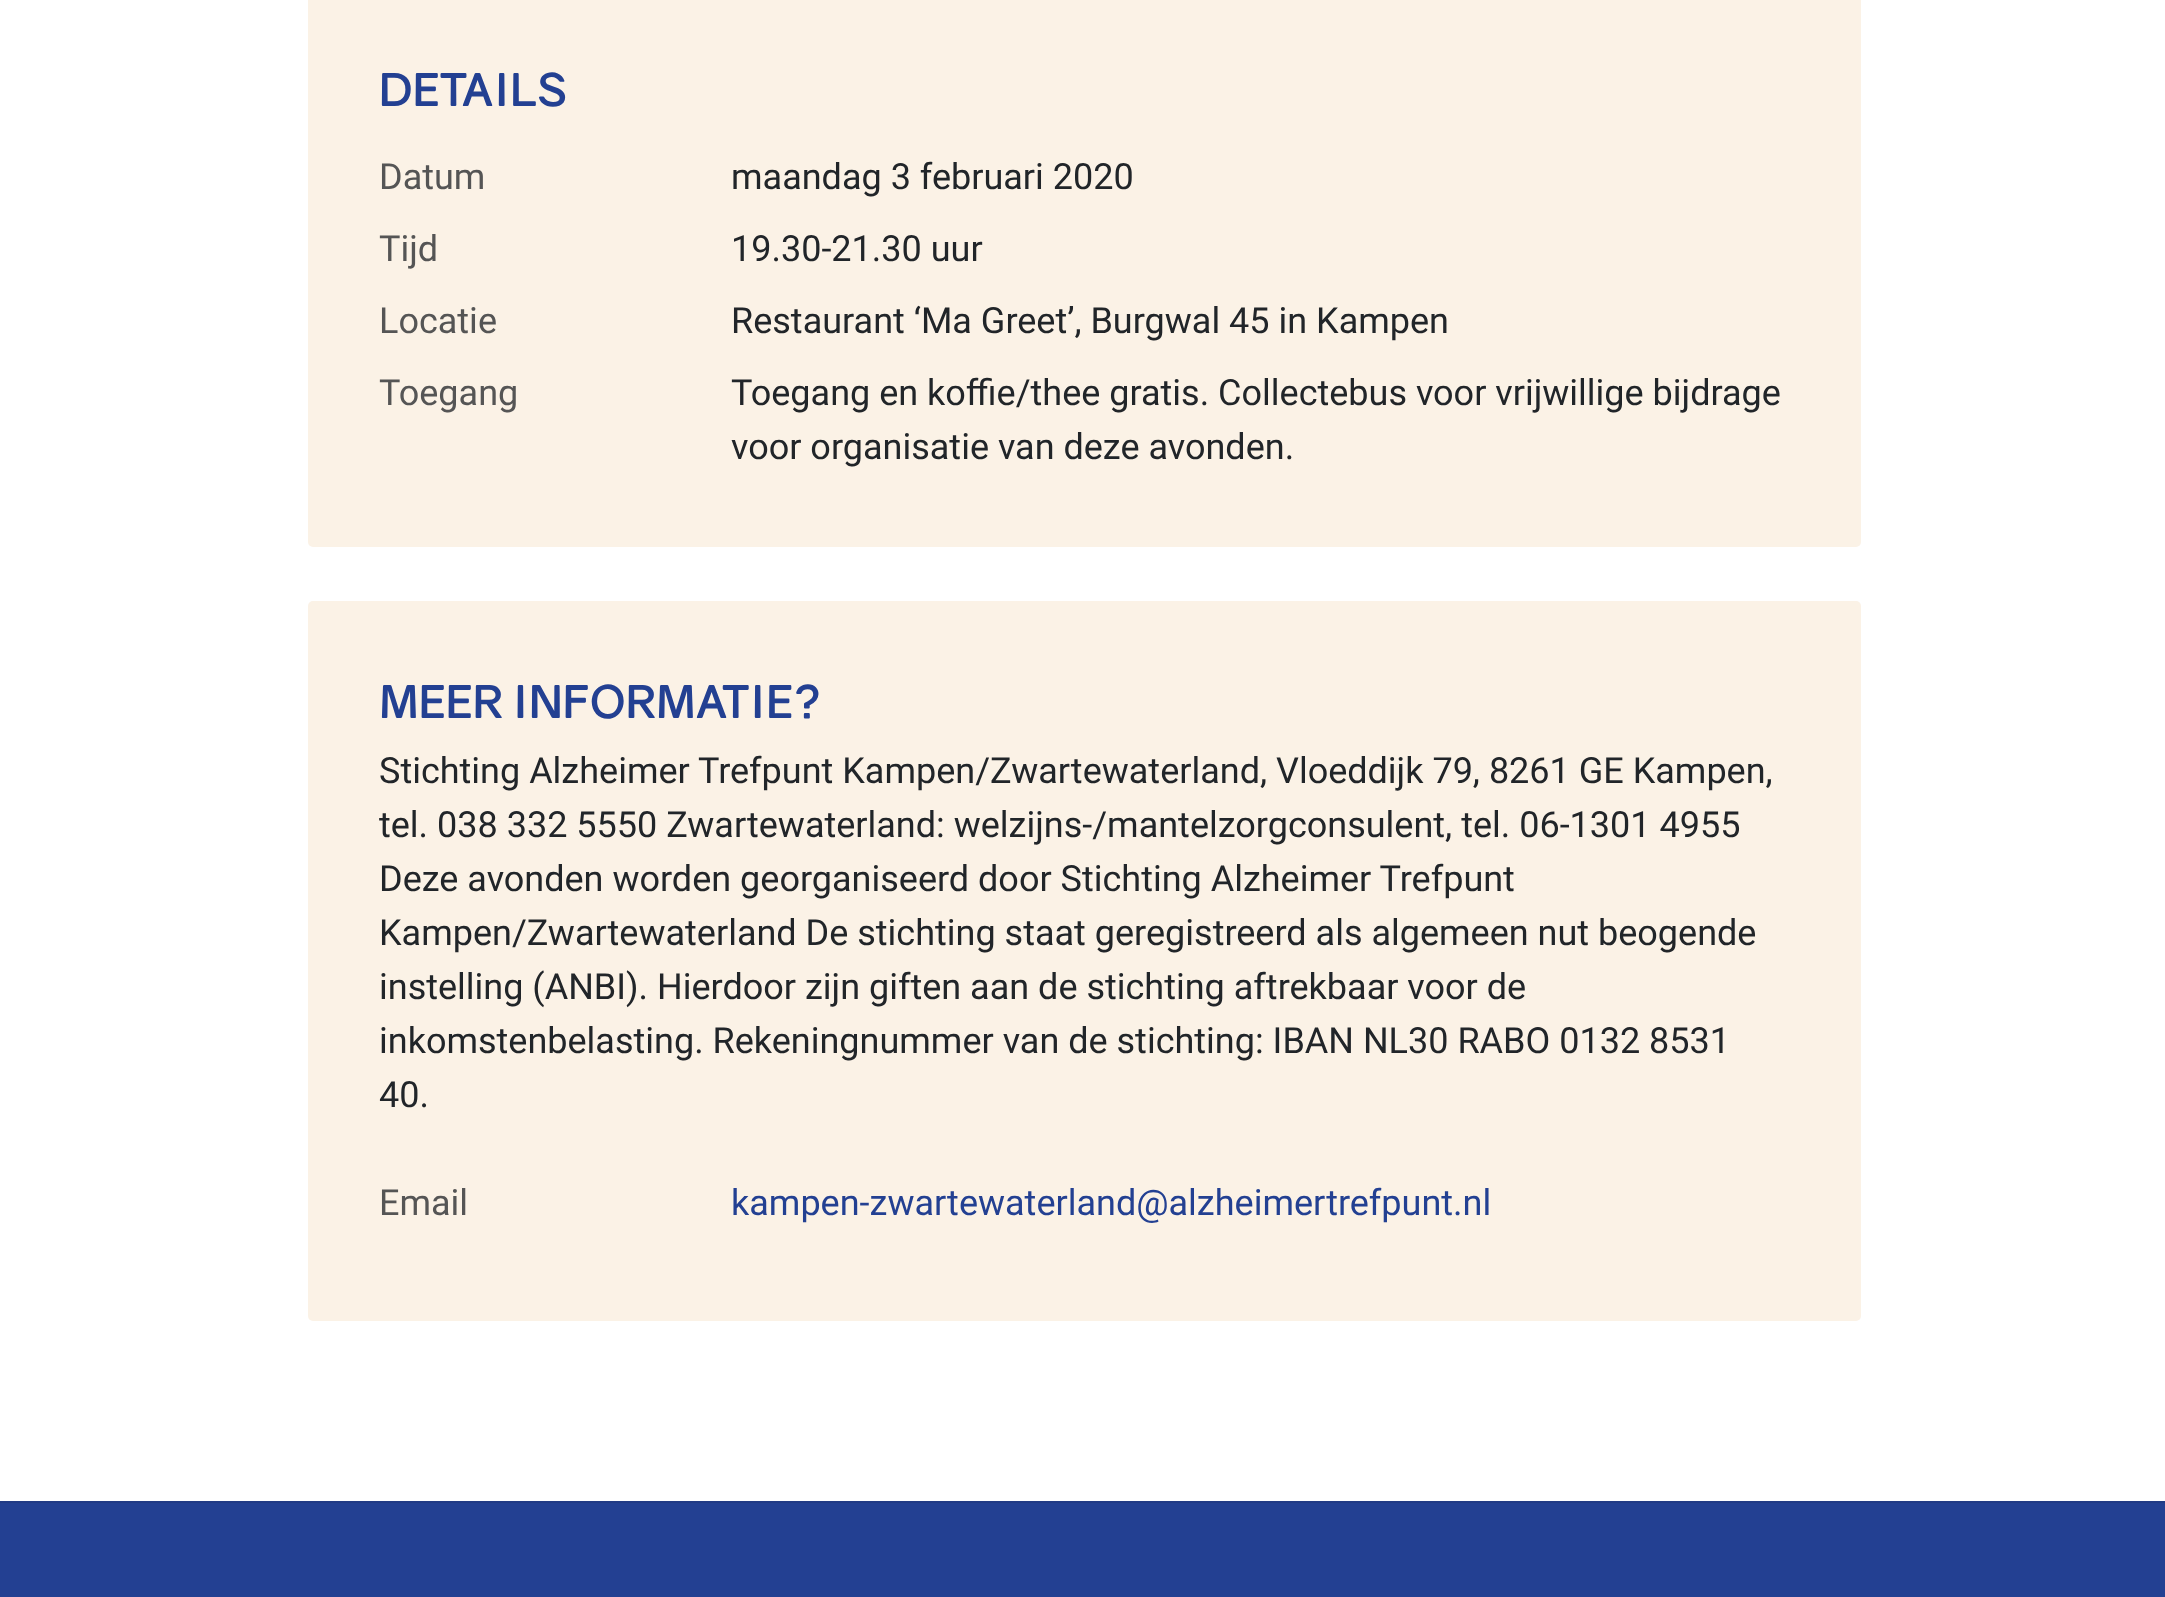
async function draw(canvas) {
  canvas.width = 2165
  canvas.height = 1597
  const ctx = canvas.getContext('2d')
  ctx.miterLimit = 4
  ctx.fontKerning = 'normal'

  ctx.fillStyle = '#fff'
  ctx.fillRect(0, 0, 2165, 1597)
  ctx.fillStyle = '#fbf2e6'
  ctx.beginPath()
  ctx.roundRect(308, -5, 1553, 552, 5)
  ctx.fill()
  ctx.font = 'bold 45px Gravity'
  ctx.fillStyle = '#234092'
  ctx.fillText('DETAILS', 379, 106)
  ctx.font = '36px Roboto'
  ctx.fillStyle = '#555'
  ctx.fillText('Datum', 379, 189)
  ctx.fillStyle = '#212529'
  ctx.fillText('maandag 3 februari 2020', 731, 189)
  ctx.fillStyle = '#555'
  ctx.fillText('Tijd', 379, 261)
  ctx.fillStyle = '#212529'
  ctx.fillText('19.30-21.30 uur', 731, 261)
  ctx.fillStyle = '#555'
  ctx.fillText('Locatie', 379, 333)
  ctx.fillStyle = '#212529'
  ctx.fillText('Restaurant ‘Ma Greet’, Burgwal 45 in Kampen', 731, 333)
  ctx.fillStyle = '#555'
  ctx.fillText('Toegang', 379, 405)
  ctx.fillStyle = '#212529'
  ctx.fillText('Toegang en koffie/thee gratis. Collectebus voor vrijwillige bijdrage', 731, 405)
  ctx.fillText('voor organisatie van deze avonden.', 731, 459)
  ctx.fillStyle = '#fbf2e6'
  ctx.beginPath()
  ctx.roundRect(308, 601, 1553, 720, 5)
  ctx.fill()
  ctx.font = 'bold 45px Gravity'
  ctx.fillStyle = '#234092'
  ctx.fillText('MEER INFORMATIE?', 379, 718)
  ctx.font = '36px Roboto'
  ctx.fillStyle = '#212529'
  ctx.fillText('Stichting Alzheimer Trefpunt Kampen/Zwartewaterland, Vloeddijk 79, 8261 GE Kampen,', 379, 783)
  ctx.fillText('tel. 038 332 5550 Zwartewaterland: welzijns-/mantelzorgconsulent, tel. 06-1301 4955', 379, 837)
  ctx.fillText('Deze avonden worden georganiseerd door Stichting Alzheimer Trefpunt', 379, 891)
  ctx.fillText('Kampen/Zwartewaterland De stichting staat geregistreerd als algemeen nut beogende', 379, 945)
  ctx.fillText('instelling (ANBI). Hierdoor zijn giften aan de stichting aftrekbaar voor de', 379, 999)
  ctx.fillText('inkomstenbelasting. Rekeningnummer van de stichting: IBAN NL30 RABO 0132 8531', 379, 1053)
  ctx.fillText('40.', 379, 1107)
  ctx.fillStyle = '#555'
  ctx.fillText('Email', 379, 1215)
  ctx.fillStyle = '#234092'
  ctx.fillText('kampen-zwartewaterland@alzheimertrefpunt.nl', 731, 1215)
  ctx.fillRect(0, 1503, 2165, 94)
  ctx.fillStyle = '#213b85'
  ctx.fillRect(0, 1501, 2165, 2)
}

draw(document.querySelector('canvas'))
